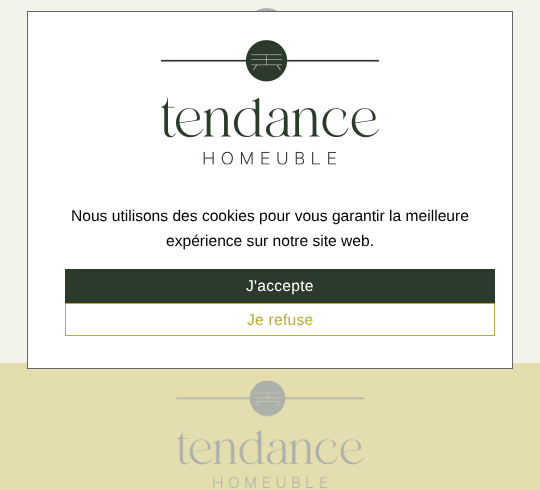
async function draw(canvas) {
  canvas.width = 540
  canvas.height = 490
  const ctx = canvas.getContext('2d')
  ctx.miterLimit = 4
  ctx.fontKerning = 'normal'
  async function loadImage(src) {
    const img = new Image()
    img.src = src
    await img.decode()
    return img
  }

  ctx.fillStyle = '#f4f3eb'
  ctx.fillRect(0, 0, 540, 490)
  ctx.drawImage(await loadImage('image0.png'), 256, 8, 21, 3)
  ctx.fillStyle = '#e4deaf'
  ctx.fillRect(0, 363, 540, 127)
  ctx.fillStyle = '#fff'
  ctx.fillRect(28, 12, 484, 356)
  ctx.drawImage(await loadImage('image1.png'), 161, 40, 218, 125)
  ctx.strokeStyle = '#666'
  ctx.strokeRect(27.5, 11.5, 485, 357)
  ctx.font = '15.6px Liberation Sans'
  ctx.fillStyle = '#000'
  ctx.fillText('Nous utilisons des cookies pour vous garantir la meilleure', 71, 221)
  ctx.fillText('expérience sur notre site web.', 166, 246)
  ctx.fillStyle = '#2c3a2b'
  ctx.fillRect(65, 269, 430, 34)
  ctx.letterSpacing = '0.25px'
  ctx.fillStyle = '#fff'
  ctx.fillText('J\'accepte', 246, 291)
  ctx.strokeStyle = '#bbad37'
  ctx.strokeRect(65.5, 303.5, 429, 32)
  ctx.fillStyle = '#bbad37'
  ctx.fillText('Je refuse', 247, 325)
  ctx.drawImage(await loadImage('image2.png'), 176, 380, 188, 109)
}

draw(document.querySelector('canvas'))
